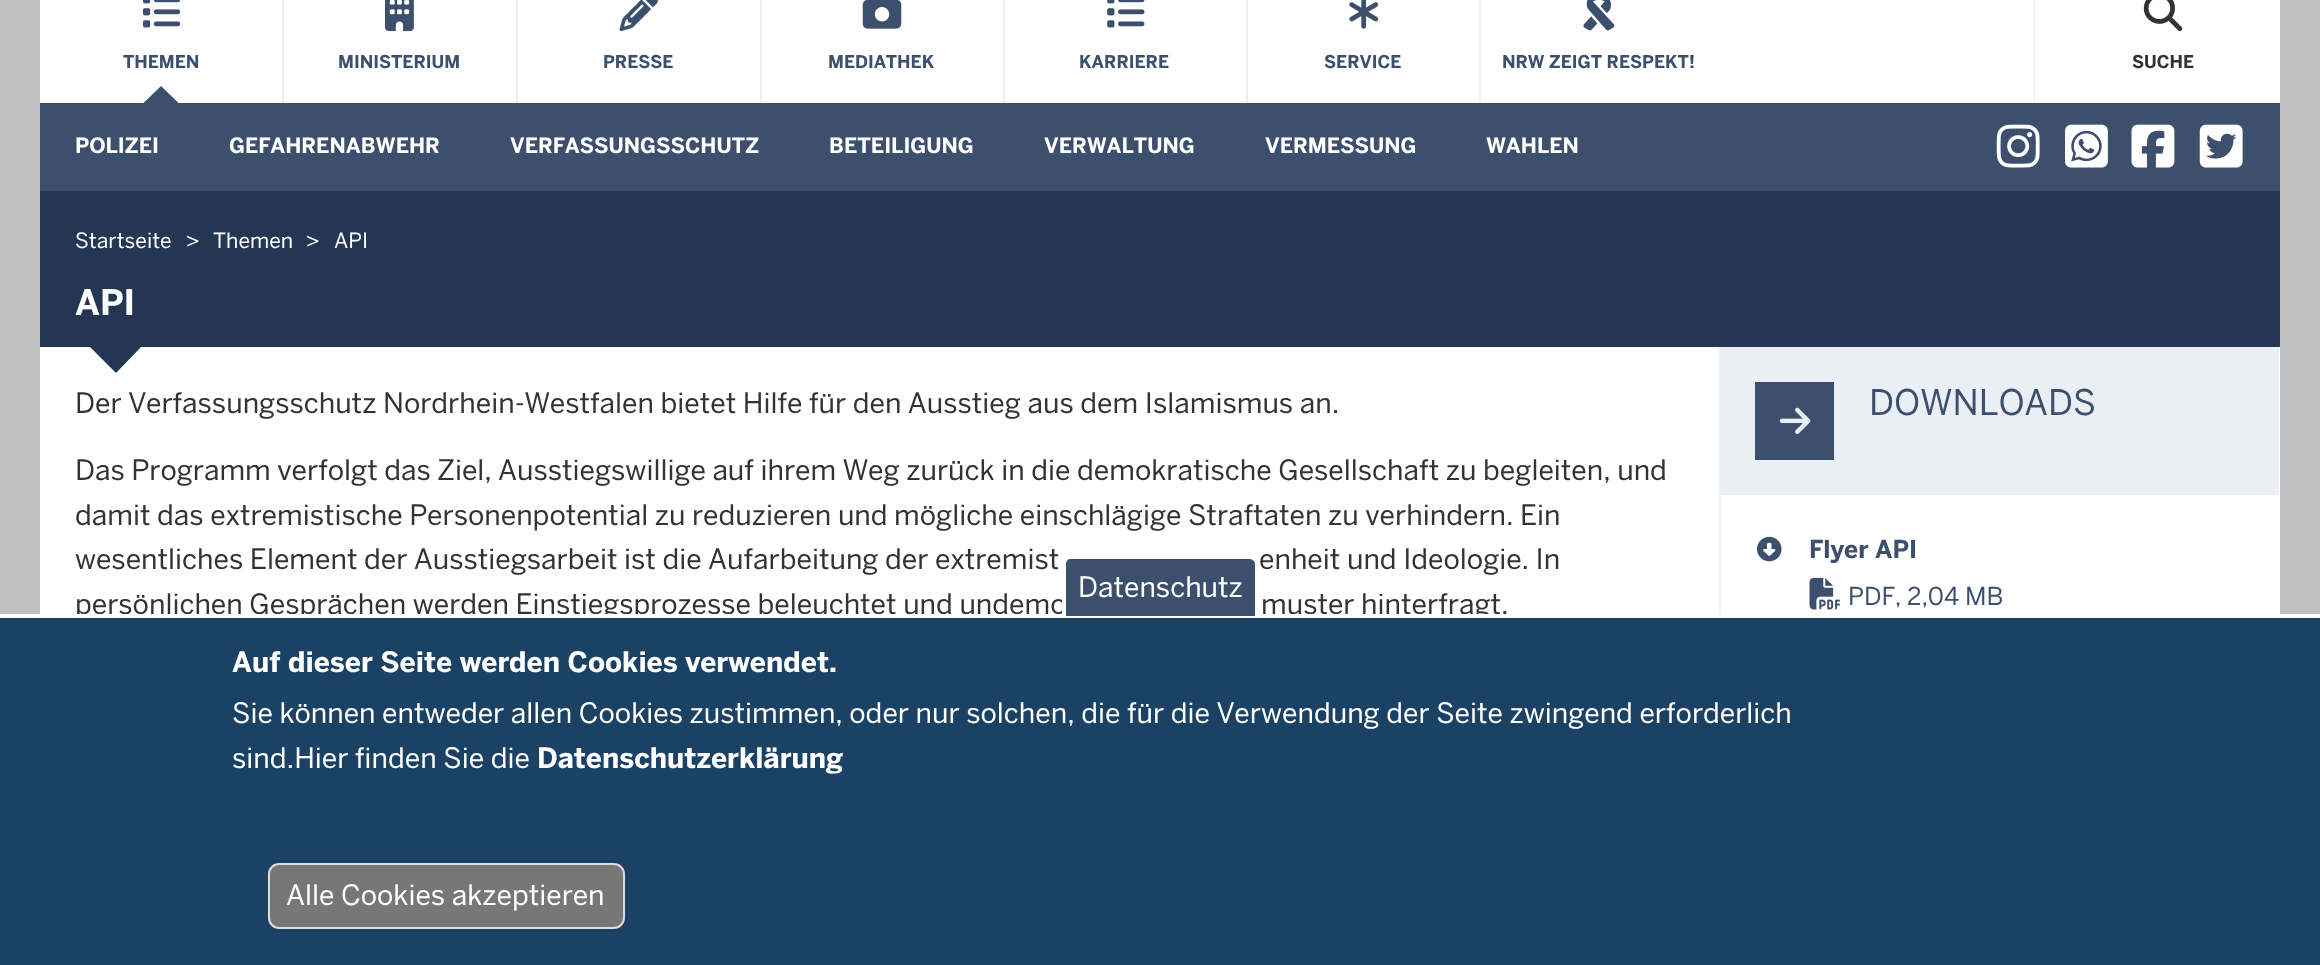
async function draw(canvas) {
  canvas.width = 2320
  canvas.height = 965
  const ctx = canvas.getContext('2d')
  ctx.miterLimit = 4
  ctx.fontKerning = 'normal'
  async function loadImage(src) {
    const img = new Image()
    img.src = src
    await img.decode()
    return img
  }

  ctx.fillStyle = '#c0c0c0'
  ctx.fillRect(0, 0, 2320, 965)
  ctx.fillStyle = '#fff'
  ctx.fillRect(40, 0, 1994, 103)
  ctx.fillStyle = '#eaeff6'
  ctx.fillRect(282, 0, 2, 103)
  ctx.drawImage(await loadImage('image0.png'), 142, 0, 39, 28)
  ctx.font = 'bold 17.5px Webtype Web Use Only'
  ctx.fillStyle = '#3c506e'
  ctx.fillText('THEMEN', 123, 68)
  ctx.beginPath()
  ctx.moveTo(178.5, 103)
  ctx.lineTo(143.5, 103)
  ctx.lineTo(161, 86)
  ctx.closePath()
  ctx.fill()
  ctx.fillStyle = '#eaeff6'
  ctx.fillRect(516, 0, 2, 103)
  ctx.drawImage(await loadImage('image1.png'), 385, 0, 29, 32)
  ctx.fillStyle = '#3c506e'
  ctx.fillText('MINISTERIUM', 338, 68)
  ctx.fillStyle = '#eaeff6'
  ctx.fillRect(760, 0, 2, 103)
  ctx.drawImage(await loadImage('image2.png'), 619, 0, 39, 31)
  ctx.fillStyle = '#3c506e'
  ctx.fillText('PRESSE', 603, 68)
  ctx.fillStyle = '#eaeff6'
  ctx.fillRect(1003, 0, 2, 103)
  ctx.drawImage(await loadImage('image3.png'), 862, 0, 40, 29)
  ctx.fillStyle = '#3c506e'
  ctx.fillText('MEDIATHEK', 828, 68)
  ctx.fillStyle = '#eaeff6'
  ctx.fillRect(1246, 0, 2, 103)
  ctx.drawImage(await loadImage('image4.png'), 1107, 0, 38, 28)
  ctx.fillStyle = '#3c506e'
  ctx.fillText('KARRIERE', 1079, 68)
  ctx.fillStyle = '#eaeff6'
  ctx.fillRect(1479, 0, 2, 103)
  ctx.drawImage(await loadImage('image5.png'), 1349, 0, 30, 29)
  ctx.fillStyle = '#3c506e'
  ctx.fillText('SERVICE', 1324, 68)
  ctx.drawImage(await loadImage('image6.png'), 1583, 0, 32, 31)
  ctx.fillText('NRW ZEIGT RESPEKT!', 1502, 68)
  ctx.fillStyle = '#eaeff6'
  ctx.fillRect(2034, 0, 1, 103)
  ctx.fillStyle = '#fff'
  ctx.fillRect(2035, 0, 245, 103)
  ctx.drawImage(await loadImage('image7.png'), 2143, 0, 40, 31)
  ctx.fillStyle = '#333'
  ctx.fillText('SUCHE', 2132, 68)
  ctx.fillStyle = '#3c506e'
  ctx.fillRect(40, 103, 2240, 88)
  ctx.font = 'bold 21px Webtype Web Use Only'
  ctx.fillStyle = '#fff'
  ctx.fillText('POLIZEI', 75, 153)
  ctx.fillText('GEFAHRENABWEHR', 229, 153)
  ctx.fillText('VERFASSUNGSSCHUTZ', 510, 153)
  ctx.fillText('BETEILIGUNG', 829, 153)
  ctx.fillText('VERWALTUNG', 1044, 153)
  ctx.fillText('VERMESSUNG', 1265, 153)
  ctx.fillText('WAHLEN', 1486, 153)
  ctx.drawImage(await loadImage('image8.png'), 1996, 124, 44, 44)
  ctx.drawImage(await loadImage('image9.png'), 2065, 124, 43, 44)
  ctx.drawImage(await loadImage('image10.png'), 2131, 124, 44, 44)
  ctx.drawImage(await loadImage('image11.png'), 2199, 124, 44, 44)
  ctx.fillRect(40, 347, 2240, 267)
  ctx.fillStyle = '#233755'
  ctx.fillRect(40, 191, 2240, 156)
  ctx.font = '21px Webtype Web Use Only'
  ctx.fillStyle = '#fff'
  ctx.fillText('Startseite', 75, 248)
  ctx.fillText('>', 186, 248)
  ctx.fillText('Themen', 213, 248)
  ctx.fillText('>', 306, 248)
  ctx.fillText('API', 334, 248)
  ctx.font = 'bold 35px Webtype Web Use Only'
  ctx.fillText('API', 75, 315)
  ctx.fillStyle = '#eaeff6'
  ctx.fillRect(1719, 347, 2, 267)
  ctx.fillStyle = '#233755'
  ctx.beginPath()
  ctx.moveTo(89, 346)
  ctx.lineTo(142, 346)
  ctx.lineTo(116, 373)
  ctx.closePath()
  ctx.fill()
  ctx.font = '28px Webtype Web Use Only'
  ctx.fillStyle = '#333'
  ctx.fillText('Der Verfassungsschutz Nordrhein-Westfalen bietet Hilfe für den Ausstieg aus dem Islamismus an.', 75, 413)
  ctx.fillText('Das Programm verfolgt das Ziel, Ausstiegswillige auf ihrem Weg zurück in die demokratische Gesellschaft zu begleiten, und', 75, 480)
  ctx.fillText('damit das extremistische Personenpotential zu reduzieren und mögliche einschlägige Straftaten zu verhindern. Ein', 75, 525)
  ctx.fillText('wesentliches Element der Ausstiegsarbeit ist die Aufarbeitung der extremist', 75, 569)
  ctx.fillText('enheit und Ideologie. In', 1259, 569)
  ctx.fillText('persönlichen Gesprächen werden Einstiegsprozesse beleuchtet und undemo', 75, 614)
  ctx.fillText('muster hinterfragt.', 1261, 614)
  ctx.fillStyle = '#eaeff6'
  ctx.fillRect(1721, 347, 558, 148)
  ctx.fillStyle = '#3c506e'
  ctx.fillRect(1755, 382, 79, 78)
  ctx.drawImage(await loadImage('image12.png'), 1779, 407, 32, 27)
  ctx.font = '35px Webtype Web Use Only'
  ctx.fillText('DOWNLOADS', 1869, 415)
  ctx.drawImage(await loadImage('image13.png'), 1757, 536, 25, 26)
  ctx.font = 'bold 24.5px Webtype Web Use Only'
  ctx.fillText('Flyer API', 1809, 558)
  ctx.drawImage(await loadImage('image14.png'), 1809, 577, 31, 33)
  ctx.font = '24.5px Webtype Web Use Only'
  ctx.fillText('PDF, 2,04 MB', 1848, 605)
  ctx.fillStyle = '#1b4265'
  ctx.fillRect(0, 618, 2320, 347)
  ctx.fillStyle = '#fff'
  ctx.fillRect(0, 614, 2320, 4)
  ctx.fillStyle = '#3c506e'
  ctx.beginPath()
  ctx.roundRect(1066, 558, 189, 58, [5, 5, 0, 0])
  ctx.fill()
  ctx.fillStyle = '#fff'
  ctx.beginPath()
  ctx.moveTo(1071, 555)
  ctx.lineTo(1249, 555)
  ctx.bezierCurveTo(1254, 555, 1258, 559, 1258, 564)
  ctx.lineTo(1258, 617)
  ctx.lineTo(1062, 617)
  ctx.lineTo(1062, 564)
  ctx.bezierCurveTo(1062, 559, 1066, 555, 1071, 555)
  ctx.closePath()
  ctx.moveTo(1071, 559)
  ctx.lineTo(1249, 559)
  ctx.bezierCurveTo(1252, 559, 1255, 561, 1255, 564)
  ctx.lineTo(1255, 617)
  ctx.lineTo(1066, 617)
  ctx.lineTo(1066, 564)
  ctx.bezierCurveTo(1066, 561, 1068, 559, 1071, 559)
  ctx.closePath()
  ctx.fill('evenodd')
  ctx.font = '28px Webtype Web Use Only'
  ctx.fillText('Datenschutz', 1078, 597)
  ctx.font = 'bold 28px Webtype Web Use Only'
  ctx.fillText('Auf dieser Seite werden Cookies verwendet.', 232, 672)
  ctx.font = '28px Webtype Web Use Only'
  ctx.fillText('Sie können entweder allen Cookies zustimmen, oder nur solchen, die für die Verwendung der Seite zwingend erforderlich', 232, 723)
  ctx.fillText('sind.Hier finden Sie die', 232, 768)
  ctx.font = 'bold 28px Webtype Web Use Only'
  ctx.fillText('Datenschutzerklärung', 537, 768)
  ctx.fillStyle = '#777'
  ctx.beginPath()
  ctx.roundRect(269, 864, 355, 64, 10)
  ctx.fill()
  ctx.strokeStyle = '#dcdcdc'
  ctx.lineWidth = 2
  ctx.stroke()
  ctx.font = '28px Webtype Web Use Only'
  ctx.fillStyle = '#fff'
  ctx.fillText('Alle Cookies akzeptieren', 286, 905)
}

draw(document.querySelector('canvas'))
